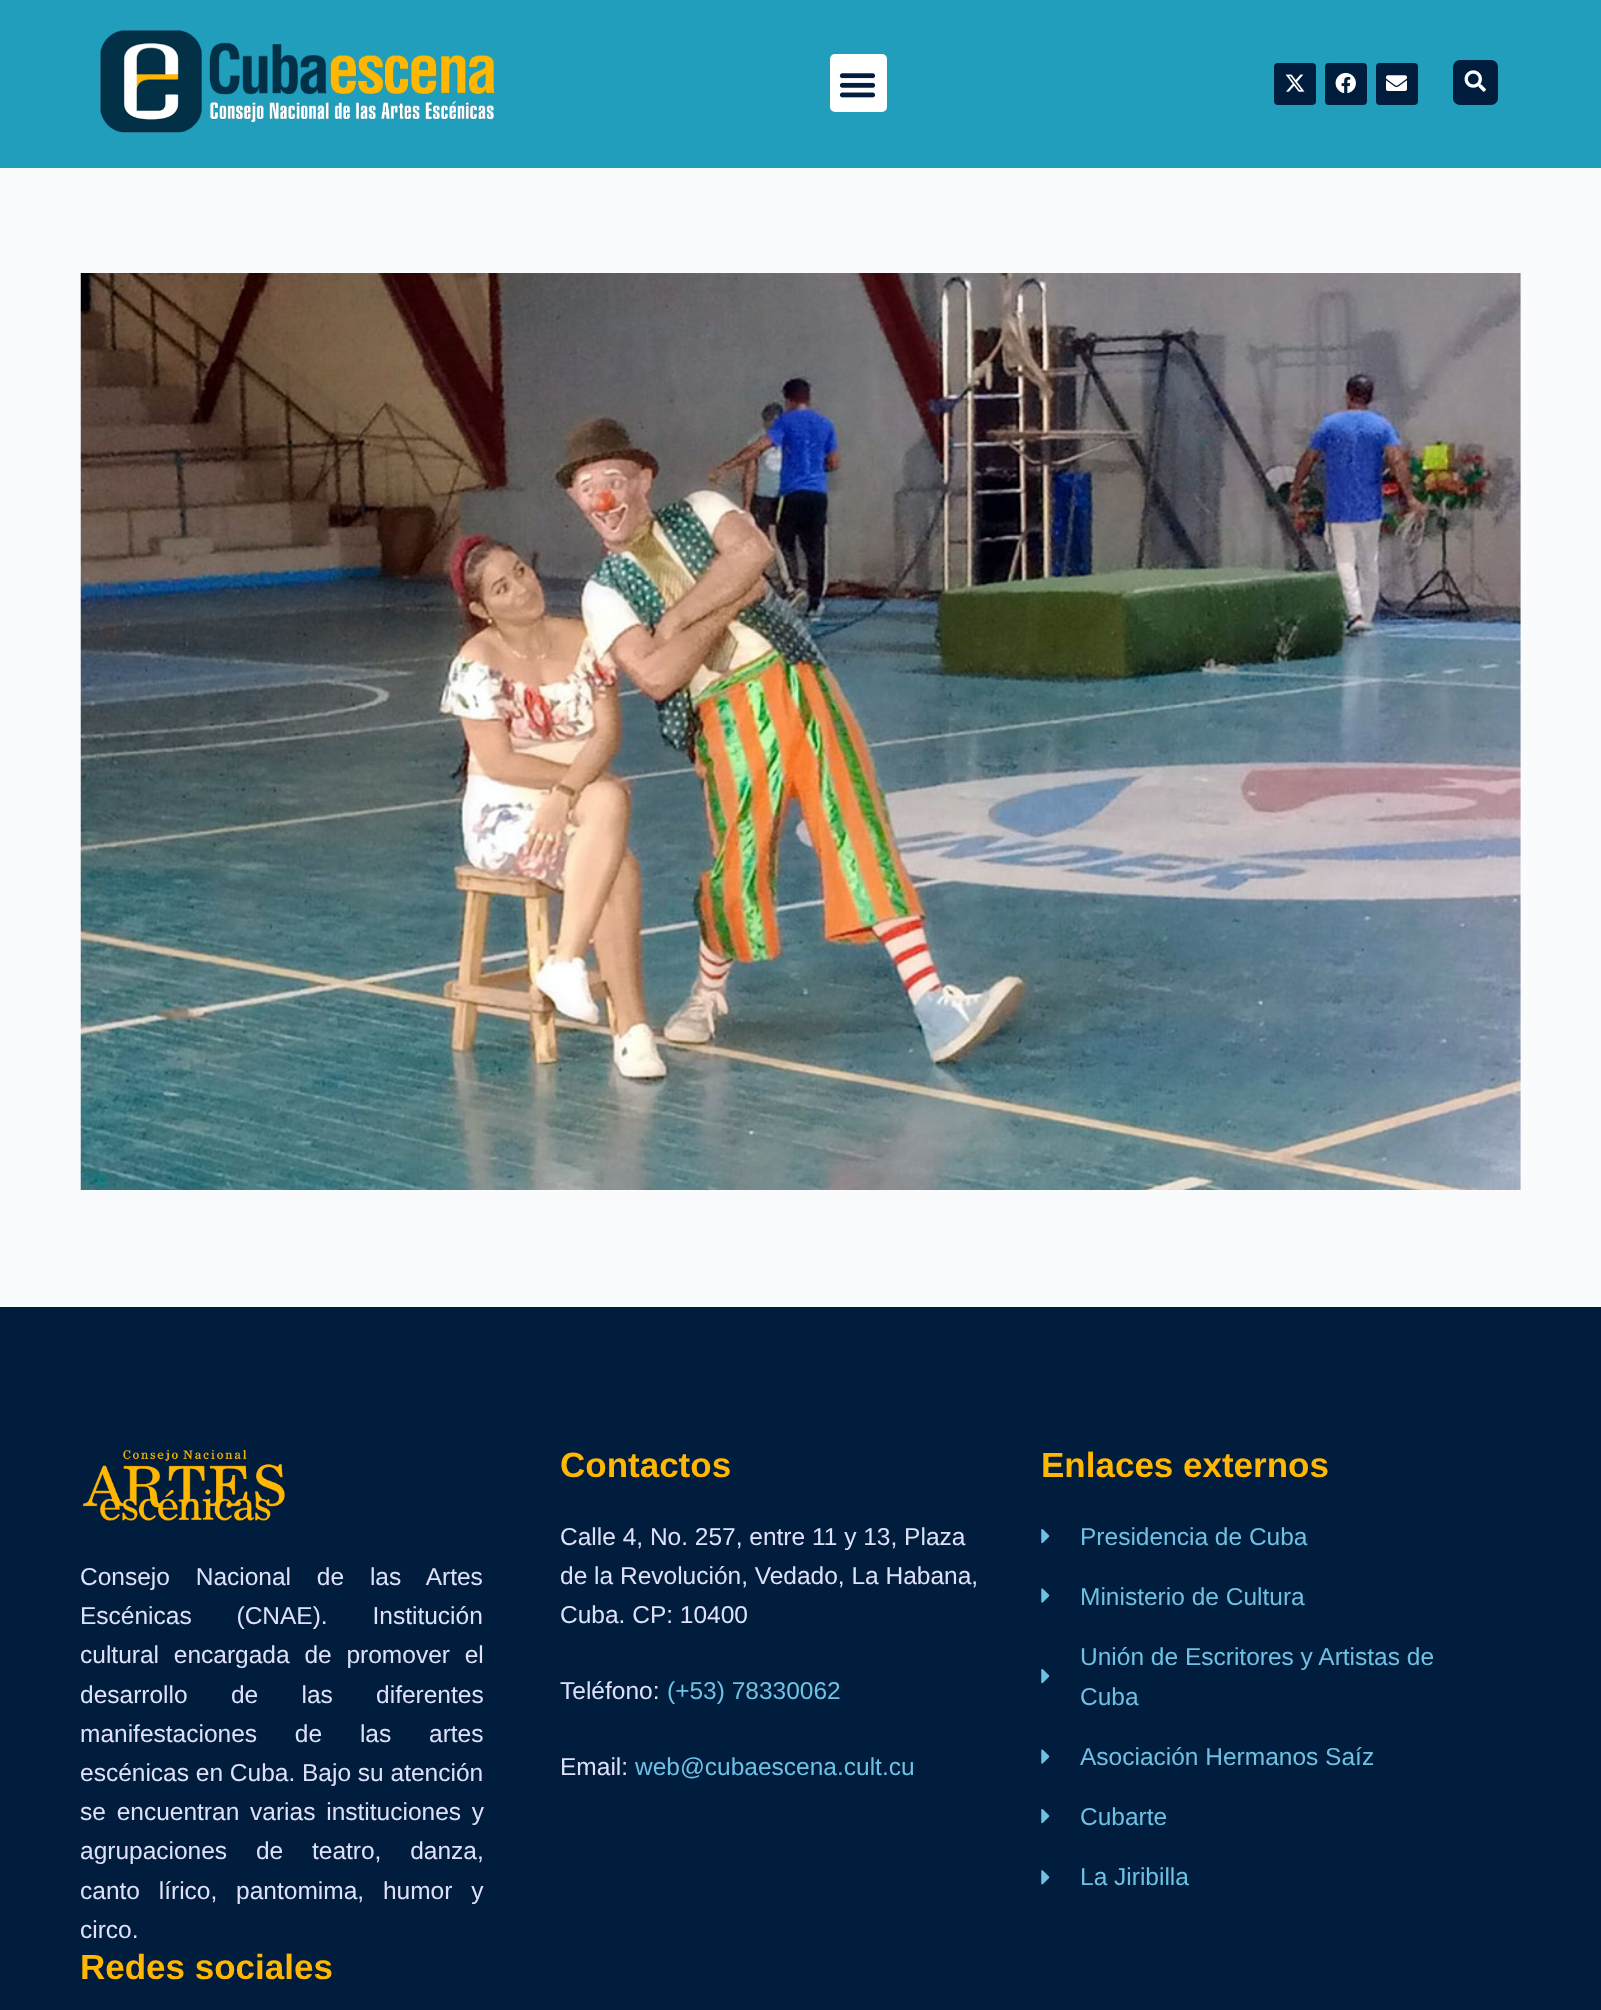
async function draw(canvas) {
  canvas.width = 1601
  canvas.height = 2010
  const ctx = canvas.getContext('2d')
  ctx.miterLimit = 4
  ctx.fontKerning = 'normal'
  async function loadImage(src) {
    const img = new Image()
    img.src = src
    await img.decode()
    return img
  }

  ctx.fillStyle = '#fafbfc'
  ctx.fillRect(0, 0, 1601, 2010)
  ctx.fillStyle = '#219ebc'
  ctx.fillRect(0, 0, 1601, 168)
  ctx.drawImage(await loadImage('image0.png'), 100, 30, 395, 103)
  ctx.fillStyle = '#fff'
  ctx.beginPath()
  ctx.roundRect(830, 54, 57, 58, 5)
  ctx.fill()
  ctx.drawImage(await loadImage('image1.png'), 839, 73, 37, 25)
  ctx.fillStyle = '#001d3d'
  ctx.beginPath()
  ctx.roundRect(1274, 63, 42, 42, 4)
  ctx.fill()
  ctx.drawImage(await loadImage('image2.png'), 1285, 74, 20, 18)
  ctx.beginPath()
  ctx.roundRect(1325, 63, 42, 42, 4)
  ctx.fill()
  ctx.drawImage(await loadImage('image3.png'), 1335, 72, 21, 22)
  ctx.beginPath()
  ctx.roundRect(1376, 63, 42, 42, 4)
  ctx.fill()
  ctx.drawImage(await loadImage('image4.png'), 1386, 75, 21, 16)
  ctx.beginPath()
  ctx.roundRect(1453, 60, 45, 45, 7)
  ctx.fill()
  ctx.drawImage(await loadImage('image5.png'), 1464, 70, 22, 22)
  ctx.drawImage(await loadImage('image6.png'), 80, 273, 1441, 917)
  ctx.fillRect(0, 1307, 1601, 703)
  ctx.drawImage(await loadImage('image7.png'), 83, 1450, 202, 71)
  ctx.wordSpacing = '19px'
  ctx.font = '24.5px Liberation Sans'
  ctx.fillStyle = '#dee1f8'
  ctx.fillText('Consejo Nacional de las Artes', 80, 1585)
  ctx.wordSpacing = '38px'
  ctx.fillText('Escénicas (CNAE). Institución', 80, 1624)
  ctx.wordSpacing = '8px'
  ctx.fillText('cultural encargada de promover el', 80, 1663)
  ctx.wordSpacing = '36.5px'
  ctx.fillText('desarrollo de las diferentes', 80, 1703)
  ctx.wordSpacing = '31px'
  ctx.fillText('manifestaciones de las artes', 80, 1742)
  ctx.wordSpacing = '0px'
  ctx.fillText('escénicas en Cuba. Bajo su atención', 80, 1781)
  ctx.wordSpacing = '4px'
  ctx.fillText('se encuentran varias instituciones y', 80, 1820)
  ctx.wordSpacing = '22px'
  ctx.fillText('agrupaciones de teatro, danza,', 80, 1859)
  ctx.wordSpacing = '12px'
  ctx.fillText('canto lírico, pantomima, humor y', 80, 1899)
  ctx.wordSpacing = '0px'
  ctx.fillText('circo.', 80, 1938)
  ctx.font = 'bold 35px Liberation Sans'
  ctx.fillStyle = '#ffb703'
  ctx.fillText('Contactos', 560, 1477)
  ctx.font = '24.5px Liberation Sans'
  ctx.fillStyle = '#dee1f8'
  ctx.fillText('Calle 4, No. 257, entre 11 y 13, Plaza', 560, 1545)
  ctx.fillText('de la Revolución, Vedado, La Habana,', 560, 1584)
  ctx.fillText('Cuba. CP: 10400', 560, 1623)
  ctx.fillText('Teléfono:', 560, 1699)
  ctx.fillStyle = '#6ec1e4'
  ctx.fillText('(+53) 78330062', 667, 1699)
  ctx.fillStyle = '#dee1f8'
  ctx.fillText('Email:', 560, 1775)
  ctx.fillStyle = '#6ec1e4'
  ctx.fillText('web@cubaescena.cult.cu', 635, 1775)
  ctx.font = 'bold 35px Liberation Sans'
  ctx.fillStyle = '#ffb703'
  ctx.fillText('Enlaces externos', 1041, 1477)
  ctx.drawImage(await loadImage('image8.png'), 1041, 1529, 9, 15)
  ctx.font = '24.5px Liberation Sans'
  ctx.fillStyle = '#6ec1e4'
  ctx.fillText('Presidencia de Cuba', 1080, 1545)
  ctx.drawImage(await loadImage('image9.png'), 1041, 1588, 9, 15)
  ctx.fillText('Ministerio de Cultura', 1080, 1605)
  ctx.drawImage(await loadImage('image8.png'), 1041, 1669, 9, 15)
  ctx.fillText('Unión de Escritores y Artistas de', 1080, 1665)
  ctx.fillText('Cuba', 1080, 1705)
  ctx.drawImage(await loadImage('image9.png'), 1041, 1749, 9, 15)
  ctx.fillText('Asociación Hermanos Saíz', 1080, 1765)
  ctx.drawImage(await loadImage('image8.png'), 1041, 1809, 9, 15)
  ctx.fillText('Cubarte', 1080, 1825)
  ctx.drawImage(await loadImage('image10.png'), 1041, 1870, 9, 15)
  ctx.fillText('La Jiribilla', 1080, 1885)
  ctx.font = 'bold 35px Liberation Sans'
  ctx.fillStyle = '#ffb703'
  ctx.fillText('Redes sociales', 80, 1979)
}

draw(document.querySelector('canvas'))
